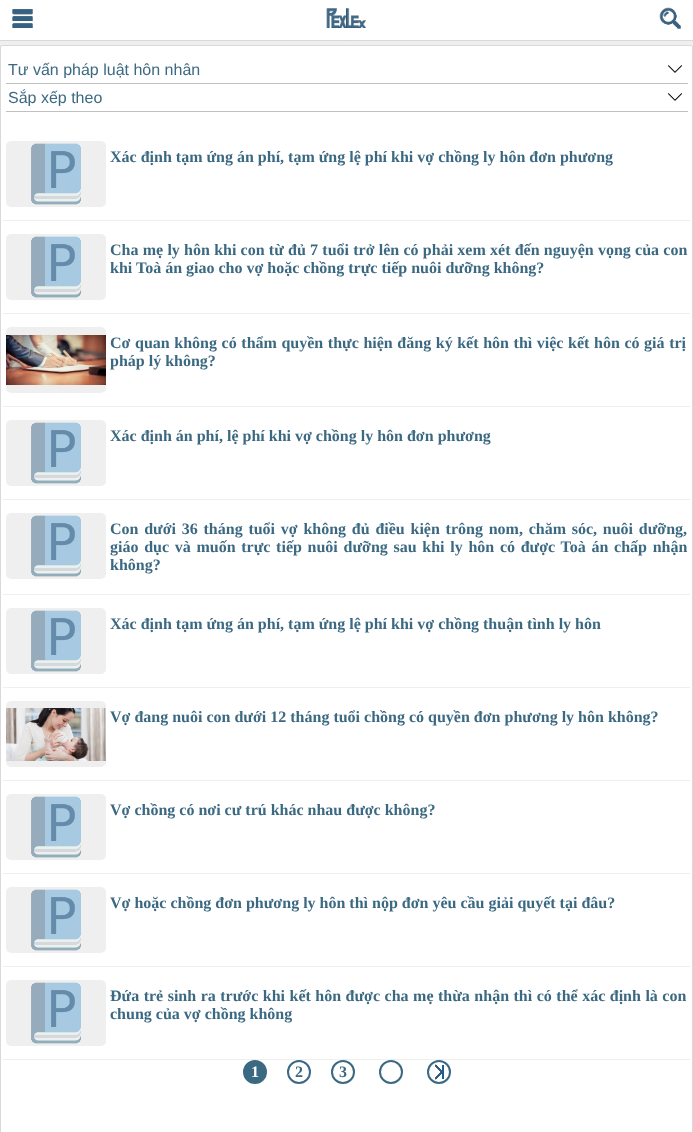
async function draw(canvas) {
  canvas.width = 693
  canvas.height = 1132
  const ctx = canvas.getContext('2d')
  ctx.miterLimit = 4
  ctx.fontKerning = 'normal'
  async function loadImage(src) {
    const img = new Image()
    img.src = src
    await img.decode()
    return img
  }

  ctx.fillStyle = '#efefef'
  ctx.fillRect(0, 0, 693, 1132)
  ctx.fillStyle = '#fff'
  ctx.fillRect(0, 0, 693, 40)
  ctx.fillStyle = '#d9d9d9'
  ctx.fillRect(0, 40, 693, 1)
  ctx.drawImage(await loadImage('image0.png'), 12, 9, 21, 19)
  ctx.drawImage(await loadImage('image1.png'), 326, 8, 40, 20)
  ctx.drawImage(await loadImage('image2.png'), 659, 7, 22, 22)
  ctx.fillStyle = '#fff'
  ctx.beginPath()
  ctx.roundRect(0.5, 45.5, 692, 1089, 1.5)
  ctx.fill()
  ctx.strokeStyle = '#d9d9d9'
  ctx.stroke()
  ctx.drawImage(await loadImage('image3.png'), 668, 65, 14, 8)
  ctx.fillStyle = '#c0c0c0'
  ctx.fillRect(6, 83, 682, 1)
  ctx.save()
  ctx.beginPath()
  ctx.rect(8, 61, 677, 17)
  ctx.clip()
  ctx.font = '16px Liberation Sans'
  ctx.fillStyle = '#3c6982'
  ctx.fillText('Tư vấn pháp luật hôn nhân', 8, 75)
  ctx.restore()
  ctx.drawImage(await loadImage('image3.png'), 668, 93, 14, 8)
  ctx.fillRect(6, 111, 682, 1)
  ctx.save()
  ctx.beginPath()
  ctx.rect(8, 89, 677, 17)
  ctx.clip()
  ctx.font = '16px Liberation Sans'
  ctx.fillStyle = '#3c6982'
  ctx.fillText('Sắp xếp theo', 8, 103)
  ctx.restore()
  ctx.fillStyle = '#efefef'
  ctx.fillRect(3, 220, 687, 1)
  ctx.beginPath()
  ctx.roundRect(6, 141, 100, 66, 5)
  ctx.fill()
  ctx.drawImage(await loadImage('image4.png'), 31, 143, 50, 62)
  ctx.font = 'bold 16px Liberation Serif'
  ctx.fillStyle = '#3c6982'
  ctx.fillText('Xác định tạm ứng án phí, tạm ứng lệ phí khi vợ chồng ly hôn đơn phương', 110, 162)
  ctx.fillStyle = '#efefef'
  ctx.fillRect(3, 313, 687, 1)
  ctx.beginPath()
  ctx.roundRect(6, 234, 100, 66, 5)
  ctx.fill()
  ctx.drawImage(await loadImage('image4.png'), 31, 236, 50, 62)
  ctx.wordSpacing = '0.25px'
  ctx.fillStyle = '#3c6982'
  ctx.fillText('Cha mẹ ly hôn khi con từ đủ 7 tuổi trở lên có phải xem xét đến nguyện vọng của con', 110, 255)
  ctx.wordSpacing = '0px'
  ctx.fillText('khi Toà án giao cho vợ hoặc chồng trực tiếp nuôi dưỡng không?', 110, 273)
  ctx.fillStyle = '#efefef'
  ctx.fillRect(3, 406, 687, 1)
  ctx.beginPath()
  ctx.roundRect(6, 327, 100, 66, 5)
  ctx.fill()
  ctx.drawImage(await loadImage('image5.png'), 6, 335, 100, 50)
  ctx.wordSpacing = '0.6px'
  ctx.fillStyle = '#3c6982'
  ctx.fillText('Cơ quan không có thẩm quyền thực hiện đăng ký kết hôn thì việc kết hôn có giá trị', 110, 348)
  ctx.wordSpacing = '0px'
  ctx.fillText('pháp lý không?', 110, 366)
  ctx.fillStyle = '#efefef'
  ctx.fillRect(3, 499, 687, 1)
  ctx.beginPath()
  ctx.roundRect(6, 420, 100, 66, 5)
  ctx.fill()
  ctx.drawImage(await loadImage('image4.png'), 31, 422, 50, 62)
  ctx.fillStyle = '#3c6982'
  ctx.fillText('Xác định án phí, lệ phí khi vợ chồng ly hôn đơn phương', 110, 441)
  ctx.fillStyle = '#efefef'
  ctx.fillRect(3, 594, 687, 1)
  ctx.beginPath()
  ctx.roundRect(6, 513, 100, 66, 5)
  ctx.fill()
  ctx.drawImage(await loadImage('image4.png'), 31, 515, 50, 62)
  ctx.wordSpacing = '1.75px'
  ctx.fillStyle = '#3c6982'
  ctx.fillText('Con dưới 36 tháng tuổi vợ không đủ điều kiện trông nom, chăm sóc, nuôi dưỡng,', 110, 534)
  ctx.wordSpacing = '1.7px'
  ctx.fillText('giáo dục và muốn trực tiếp nuôi dưỡng sau khi ly hôn có được Toà án chấp nhận', 110, 552)
  ctx.wordSpacing = '0px'
  ctx.fillText('không?', 110, 570)
  ctx.fillStyle = '#efefef'
  ctx.fillRect(3, 687, 687, 1)
  ctx.beginPath()
  ctx.roundRect(6, 608, 100, 66, 5)
  ctx.fill()
  ctx.drawImage(await loadImage('image4.png'), 31, 610, 50, 62)
  ctx.fillStyle = '#3c6982'
  ctx.fillText('Xác định tạm ứng án phí, tạm ứng lệ phí khi vợ chồng thuận tình ly hôn', 110, 629)
  ctx.fillStyle = '#efefef'
  ctx.fillRect(3, 780, 687, 1)
  ctx.beginPath()
  ctx.roundRect(6, 701, 100, 66, 5)
  ctx.fill()
  ctx.drawImage(await loadImage('image6.png'), 6, 708, 100, 53)
  ctx.fillStyle = '#3c6982'
  ctx.fillText('Vợ đang nuôi con dưới 12 tháng tuổi chồng có quyền đơn phương ly hôn không?', 110, 722)
  ctx.fillStyle = '#efefef'
  ctx.fillRect(3, 873, 687, 1)
  ctx.beginPath()
  ctx.roundRect(6, 794, 100, 66, 5)
  ctx.fill()
  ctx.drawImage(await loadImage('image4.png'), 31, 796, 50, 62)
  ctx.fillStyle = '#3c6982'
  ctx.fillText('Vợ chồng có nơi cư trú khác nhau được không?', 110, 815)
  ctx.fillStyle = '#efefef'
  ctx.fillRect(3, 966, 687, 1)
  ctx.beginPath()
  ctx.roundRect(6, 887, 100, 66, 5)
  ctx.fill()
  ctx.drawImage(await loadImage('image4.png'), 31, 889, 50, 62)
  ctx.fillStyle = '#3c6982'
  ctx.fillText('Vợ hoặc chồng đơn phương ly hôn thì nộp đơn yêu cầu giải quyết tại đâu?', 110, 908)
  ctx.fillStyle = '#efefef'
  ctx.fillRect(3, 1059, 687, 1)
  ctx.beginPath()
  ctx.roundRect(6, 980, 100, 66, 5)
  ctx.fill()
  ctx.drawImage(await loadImage('image4.png'), 31, 982, 50, 62)
  ctx.wordSpacing = '0.5px'
  ctx.fillStyle = '#3c6982'
  ctx.fillText('Đứa trẻ sinh ra trước khi kết hôn được cha mẹ thừa nhận thì có thể xác định là con', 110, 1001)
  ctx.wordSpacing = '0px'
  ctx.fillText('chung của vợ chồng không', 110, 1019)
  ctx.beginPath()
  ctx.arc(255, 1072, 11, 0, 2 * Math.PI)
  ctx.fill()
  ctx.strokeStyle = '#3c6982'
  ctx.lineWidth = 2
  ctx.stroke()
  ctx.fillStyle = '#fff'
  ctx.fillText('1', 251, 1077)
  ctx.beginPath()
  ctx.arc(299, 1072, 11, 0, 2 * Math.PI)
  ctx.stroke()
  ctx.fillStyle = '#3c6982'
  ctx.fillText('2', 295, 1077)
  ctx.beginPath()
  ctx.arc(343, 1072, 11, 0, 2 * Math.PI)
  ctx.stroke()
  ctx.fillText('3', 339, 1077)
  ctx.beginPath()
  ctx.arc(391, 1072, 11, 0, 2 * Math.PI)
  ctx.stroke()
  ctx.drawImage(await loadImage('image7.png'), 435, 1064, 9, 16)
  ctx.beginPath()
  ctx.arc(439, 1072, 11, 0, 2 * Math.PI)
  ctx.stroke()
}

draw(document.querySelector('canvas'))
